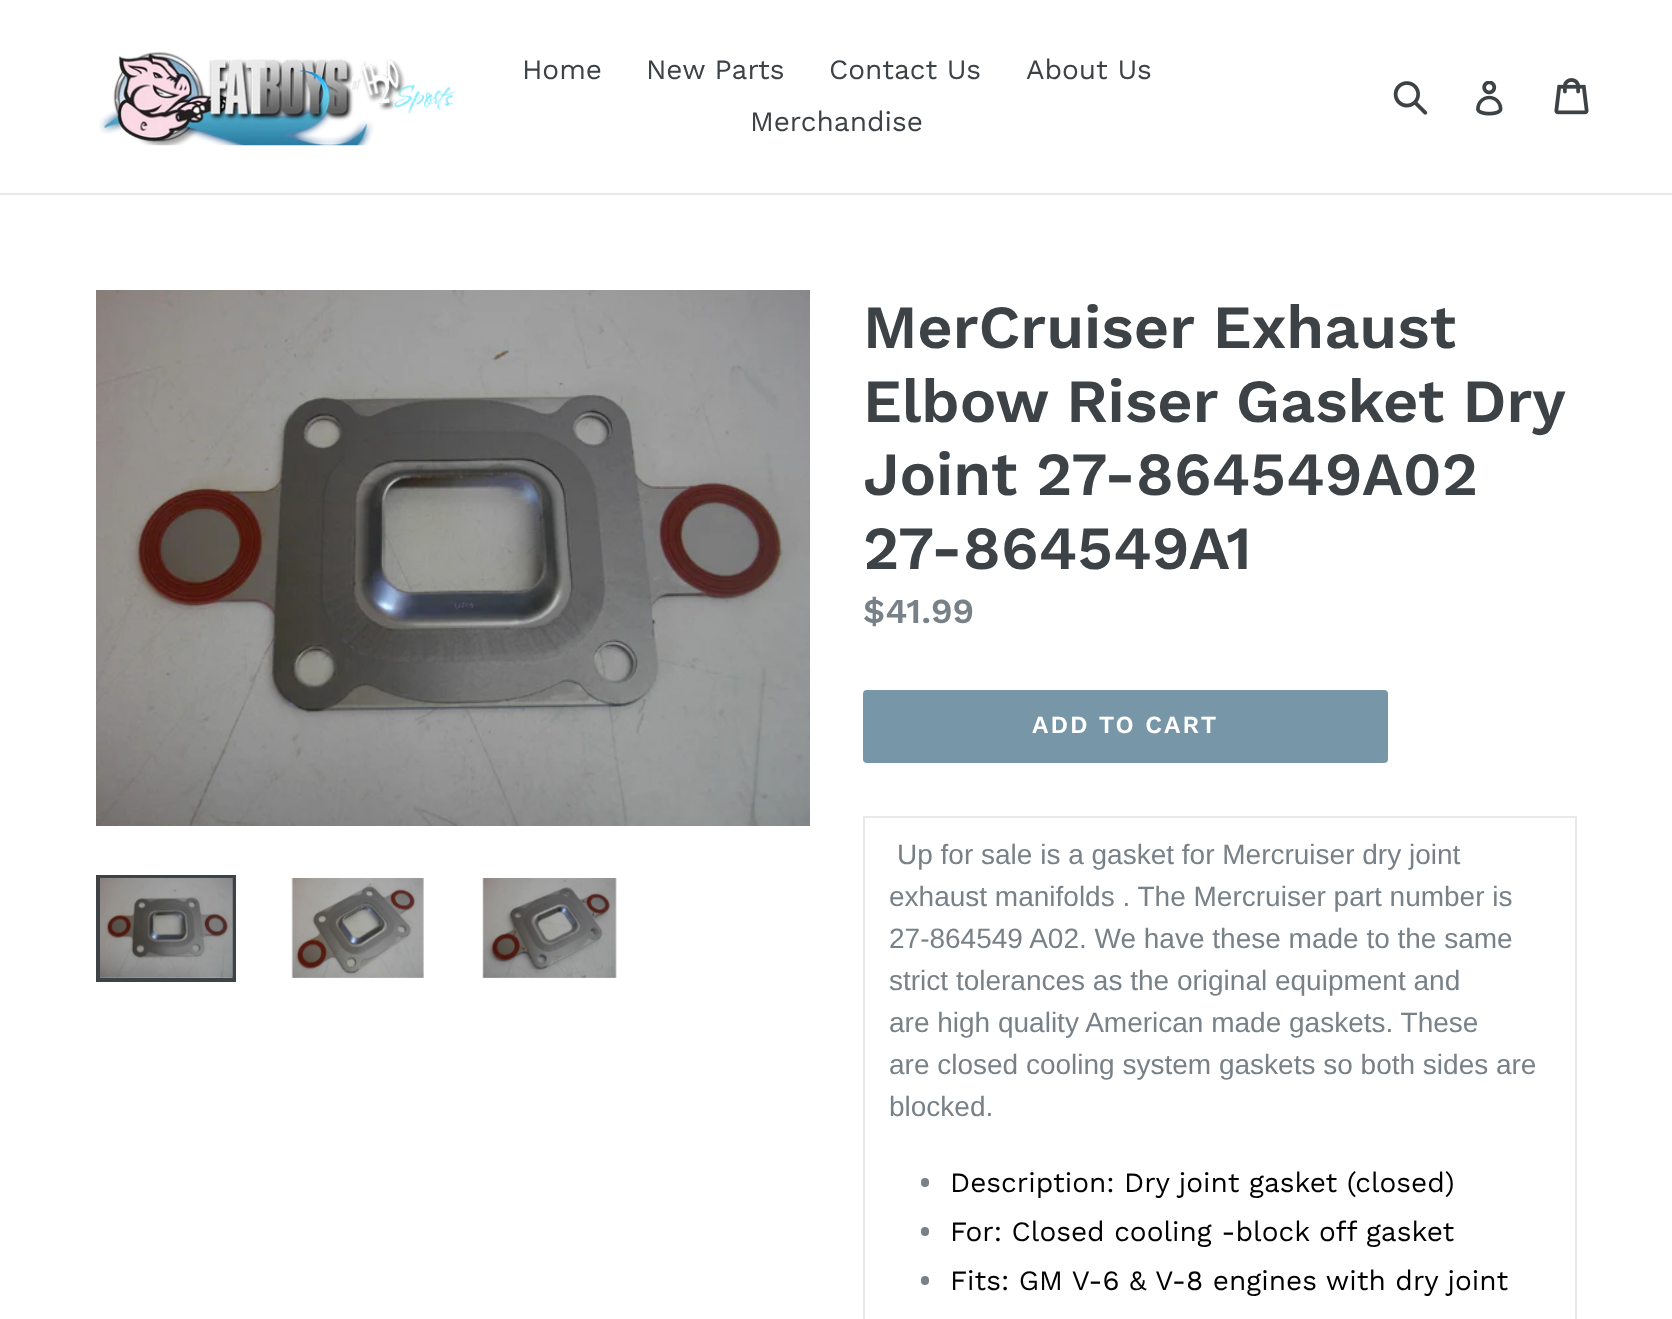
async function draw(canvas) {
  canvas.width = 1672
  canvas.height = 1319
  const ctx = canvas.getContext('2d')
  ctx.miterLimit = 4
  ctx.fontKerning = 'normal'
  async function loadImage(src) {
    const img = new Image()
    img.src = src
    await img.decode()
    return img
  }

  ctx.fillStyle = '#fff'
  ctx.fillRect(0, 0, 1672, 1319)
  ctx.fillStyle = '#e8e9eb'
  ctx.fillRect(0, 193, 1672, 2)
  ctx.drawImage(await loadImage('image0.png'), 99, 52, 357, 94)
  ctx.font = '28px Work Sans'
  ctx.fillStyle = '#3d4246'
  ctx.fillText('Home', 522, 79)
  ctx.fillText('New Parts', 646, 79)
  ctx.fillText('Contact Us', 829, 79)
  ctx.fillText('About Us', 1026, 79)
  ctx.fillText('Merchandise', 750, 131)
  ctx.drawImage(await loadImage('image1.png'), 1393, 81, 35, 34)
  ctx.drawImage(await loadImage('image2.png'), 1476, 81, 27, 35)
  ctx.drawImage(await loadImage('image3.png'), 1554, 78, 35, 37)
  ctx.drawImage(await loadImage('image4.png'), 96, 290, 714, 536)
  ctx.strokeStyle = '#3d4246'
  ctx.lineWidth = 4
  ctx.strokeRect(98, 877, 136, 103)
  ctx.drawImage(await loadImage('image5.png'), 100, 878, 133, 100)
  ctx.drawImage(await loadImage('image6.png'), 291, 878, 133, 100)
  ctx.drawImage(await loadImage('image7.png'), 482, 878, 135, 100)
  ctx.font = '600 61.25px Work Sans'
  ctx.fillText('MerCruiser Exhaust', 863, 348)
  ctx.wordSpacing = '-0.5px'
  ctx.fillText('Elbow Riser Gasket Dry', 863, 422)
  ctx.wordSpacing = '0px'
  ctx.fillText('Joint 27-864549A02', 863, 495)
  ctx.fillText('27-864549A1', 863, 569)
  ctx.font = '600 35px Work Sans'
  ctx.fillStyle = '#788188'
  ctx.fillText('$41.99', 863, 623)
  ctx.fillStyle = '#7796a8'
  ctx.beginPath()
  ctx.roundRect(863, 690, 525, 73, 4)
  ctx.fill()
  ctx.letterSpacing = '2px'
  ctx.font = '600 24.5px Work Sans'
  ctx.fillStyle = '#fff'
  ctx.fillText('ADD TO CART', 1032, 733)
  ctx.fillStyle = '#e8e9eb'
  ctx.fillRect(863, 816, 714, 2)
  ctx.fillRect(1575, 816, 2, 503)
  ctx.fillRect(863, 816, 2, 503)
  ctx.letterSpacing = '0px'
  ctx.font = '28px Liberation Sans'
  ctx.fillStyle = '#788188'
  ctx.fillText('Up for sale is a gasket for Mercruiser dry joint', 897, 864)
  ctx.fillText('exhaust manifolds . The Mercruiser part number is', 889, 906)
  ctx.fillText('27-864549 A02. We have these made to the same', 889, 948)
  ctx.fillText('strict tolerances as the original equipment and', 889, 990)
  ctx.fillText('are high quality American made gaskets. These', 889, 1032)
  ctx.fillText('are closed cooling system gaskets so both sides are', 889, 1074)
  ctx.fillText('blocked.', 889, 1116)
  ctx.beginPath()
  ctx.roundRect(921, 1178, 8, 9, 4)
  ctx.fill()
  ctx.font = '28px Work Sans'
  ctx.fillStyle = '#000'
  ctx.fillText('Description: Dry joint gasket (closed)', 950, 1192)
  ctx.fillStyle = '#788188'
  ctx.beginPath()
  ctx.roundRect(921, 1227, 8, 9, 4)
  ctx.fill()
  ctx.fillStyle = '#000'
  ctx.fillText('For: Closed cooling -block off gasket', 950, 1241)
  ctx.fillStyle = '#788188'
  ctx.beginPath()
  ctx.roundRect(921, 1276, 8, 9, 4)
  ctx.fill()
  ctx.fillStyle = '#000'
  ctx.fillText('Fits: GM V-6 & V-8 engines with dry joint', 950, 1290)
}

draw(document.querySelector('canvas'))
